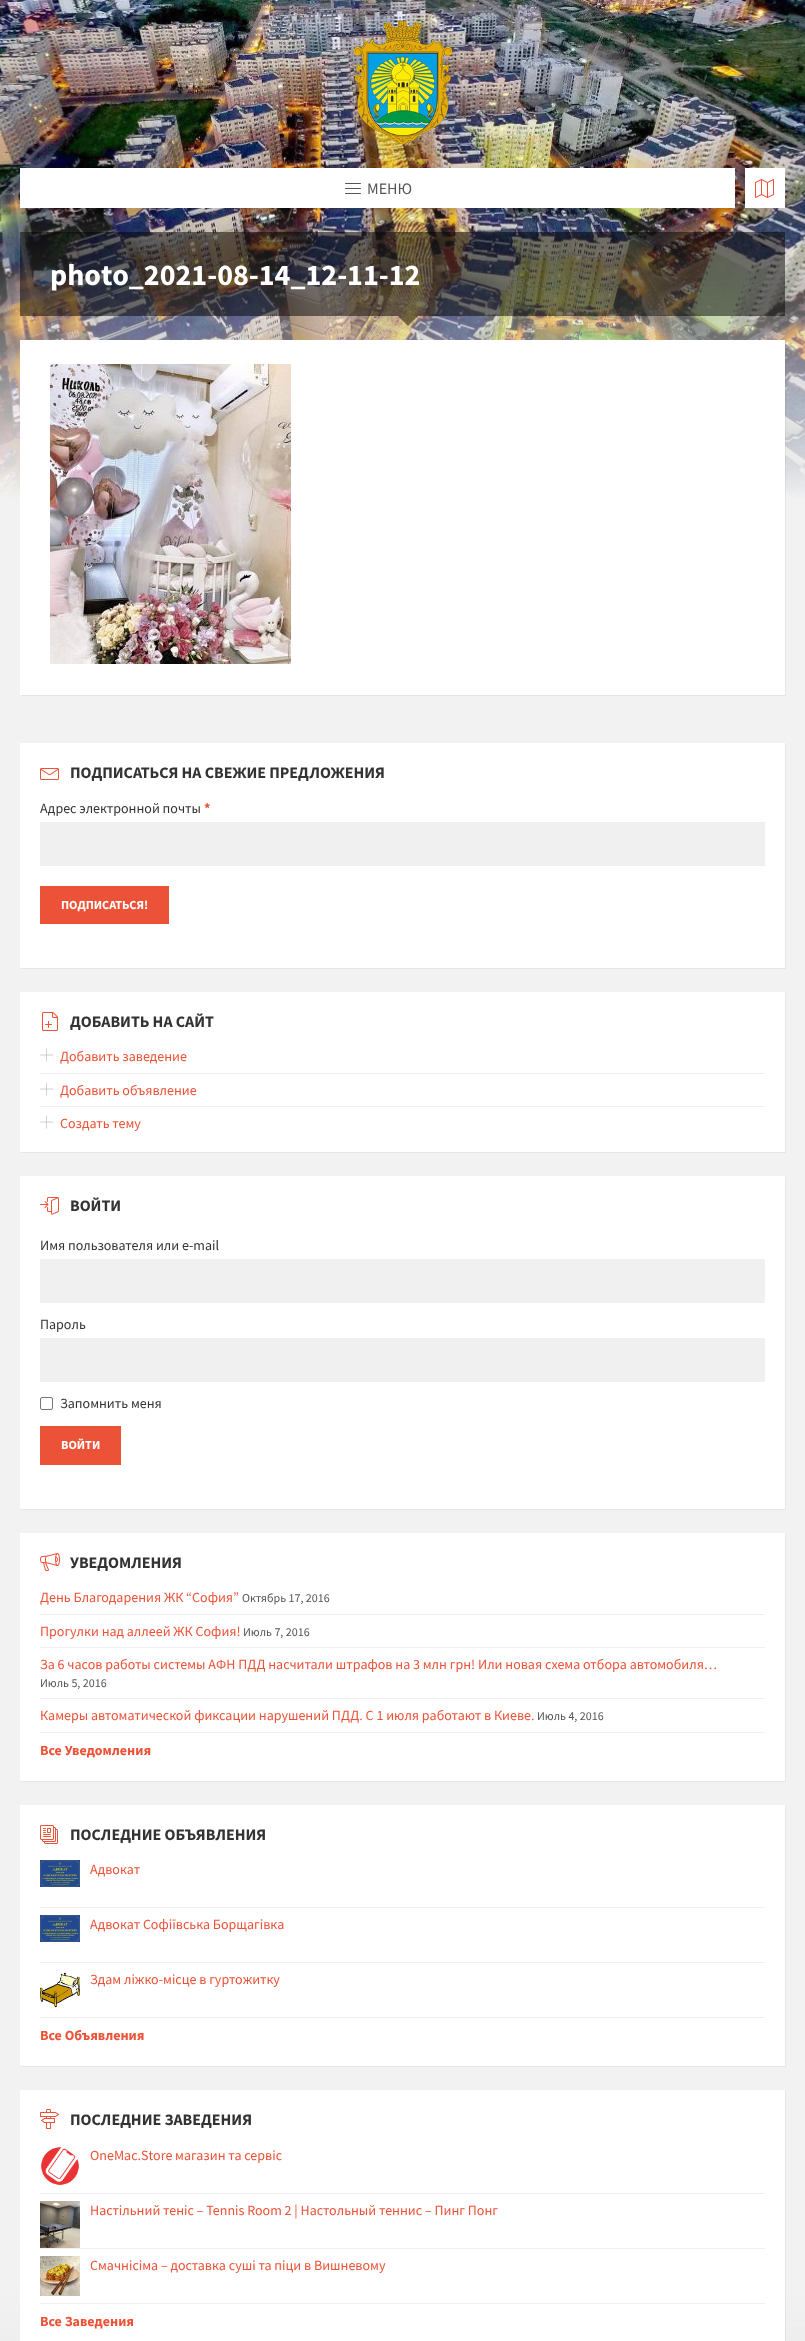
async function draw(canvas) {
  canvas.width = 805
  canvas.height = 2341
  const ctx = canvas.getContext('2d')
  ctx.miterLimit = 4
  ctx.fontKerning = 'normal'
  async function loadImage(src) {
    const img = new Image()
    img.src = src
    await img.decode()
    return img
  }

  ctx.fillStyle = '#f2f2f2'
  ctx.fillRect(0, 0, 805, 2341)
  ctx.drawImage(await loadImage('image0.png'), 0, 0, 805, 500)
  ctx.drawImage(await loadImage('image1.png'), 353, 20, 100, 125)
  ctx.fillStyle = '#fff'
  ctx.fillRect(20, 168, 715, 40)
  ctx.drawImage(await loadImage('image2.png'), 345, 183, 16, 11)
  ctx.font = '16px Source Sans Pro'
  ctx.fillStyle = '#565656'
  ctx.fillText('МЕНЮ', 367, 194)
  ctx.fillStyle = '#fff'
  ctx.fillRect(745, 168, 40, 40)
  ctx.drawImage(await loadImage('image3.png'), 755, 179, 19, 19)
  ctx.fillStyle = '#00000080'
  ctx.fillRect(20, 232, 765, 84)
  ctx.font = 'bold 30px Source Sans Pro'
  ctx.fillStyle = '#fff'
  ctx.fillText('photo_2021-08-14_12-11-12', 50, 285)
  ctx.fillStyle = '#00000080'
  ctx.beginPath()
  ctx.moveTo(398, 316)
  ctx.lineTo(418, 316)
  ctx.lineTo(408, 326)
  ctx.closePath()
  ctx.fill()
  ctx.fillStyle = '#0000000d'
  ctx.beginPath()
  ctx.moveTo(21, 695)
  ctx.lineTo(21, 696)
  ctx.lineTo(786, 696)
  ctx.lineTo(786, 341)
  ctx.lineTo(785, 341)
  ctx.lineTo(785, 695)
  ctx.closePath()
  ctx.fill()
  ctx.fillStyle = '#fff'
  ctx.fillRect(20, 340, 765, 355)
  ctx.drawImage(await loadImage('image4.png'), 50, 364, 241, 300)
  ctx.fillStyle = '#e6e6e6'
  ctx.beginPath()
  ctx.moveTo(21, 968)
  ctx.lineTo(21, 969)
  ctx.lineTo(786, 969)
  ctx.lineTo(786, 744)
  ctx.lineTo(785, 744)
  ctx.lineTo(785, 968)
  ctx.closePath()
  ctx.fill()
  ctx.fillStyle = '#fff'
  ctx.fillRect(20, 743, 765, 225)
  ctx.drawImage(await loadImage('image5.png'), 40, 768, 19, 12)
  ctx.font = 'bold 16px Source Sans Pro'
  ctx.fillStyle = '#333'
  ctx.fillText('ПОДПИСАТЬСЯ НА СВЕЖИЕ ПРЕДЛОЖЕНИЯ', 70, 778)
  ctx.font = '14px Source Sans Pro'
  ctx.fillText('Адрес электронной почты', 40, 813)
  ctx.font = 'bold 14px Source Sans Pro'
  ctx.fillStyle = '#ec5237'
  ctx.fillText('*', 204, 813)
  ctx.fillStyle = '#f0f0f0'
  ctx.fillRect(40, 822, 725, 44)
  ctx.fillStyle = '#ec5237'
  ctx.fillRect(40, 886, 129, 38)
  ctx.font = 'bold 12.25px Source Sans Pro'
  ctx.fillStyle = '#fff'
  ctx.fillText('ПОДПИСАТЬСЯ!', 61, 909)
  ctx.fillStyle = '#e6e6e6'
  ctx.beginPath()
  ctx.moveTo(21, 1152)
  ctx.lineTo(21, 1153)
  ctx.lineTo(786, 1153)
  ctx.lineTo(786, 993)
  ctx.lineTo(785, 993)
  ctx.lineTo(785, 1152)
  ctx.closePath()
  ctx.fill()
  ctx.fillStyle = '#fff'
  ctx.fillRect(20, 992, 765, 160)
  ctx.drawImage(await loadImage('image6.png'), 42, 1012, 16, 19)
  ctx.font = 'bold 16px Source Sans Pro'
  ctx.fillStyle = '#333'
  ctx.fillText('ДОБАВИТЬ НА САЙТ', 70, 1027)
  ctx.drawImage(await loadImage('image7.png'), 40, 1048, 14, 14)
  ctx.font = '14px Source Sans Pro'
  ctx.fillStyle = '#ec5237'
  ctx.fillText('Добавить заведение', 60, 1061)
  ctx.fillStyle = '#f0f0f0'
  ctx.fillRect(40, 1073, 725, 1)
  ctx.drawImage(await loadImage('image7.png'), 40, 1082, 14, 14)
  ctx.fillStyle = '#ec5237'
  ctx.fillText('Добавить объявление', 60, 1095)
  ctx.fillStyle = '#f0f0f0'
  ctx.fillRect(40, 1106, 725, 1)
  ctx.drawImage(await loadImage('image7.png'), 40, 1115, 14, 14)
  ctx.fillStyle = '#ec5237'
  ctx.fillText('Создать тему', 60, 1128)
  ctx.fillStyle = '#e6e6e6'
  ctx.beginPath()
  ctx.moveTo(21, 1509)
  ctx.lineTo(21, 1510)
  ctx.lineTo(786, 1510)
  ctx.lineTo(786, 1177)
  ctx.lineTo(785, 1177)
  ctx.lineTo(785, 1509)
  ctx.closePath()
  ctx.fill()
  ctx.fillStyle = '#fff'
  ctx.fillRect(20, 1176, 765, 333)
  ctx.drawImage(await loadImage('image8.png'), 40, 1197, 19, 18)
  ctx.font = 'bold 16px Source Sans Pro'
  ctx.fillStyle = '#333'
  ctx.fillText('ВОЙТИ', 70, 1211)
  ctx.font = '14px Source Sans Pro'
  ctx.fillText('Имя пользователя или e-mail', 40, 1250)
  ctx.fillStyle = '#f0f0f0'
  ctx.fillRect(40, 1259, 725, 44)
  ctx.fillStyle = '#333'
  ctx.fillText('Пароль', 40, 1329)
  ctx.fillStyle = '#f0f0f0'
  ctx.fillRect(40, 1338, 725, 44)
  ctx.beginPath()
  ctx.roundRect(40.5, 1397.5, 12, 12, 1.5)
  ctx.strokeStyle = '#767676'
  ctx.stroke()
  ctx.fillStyle = '#333'
  ctx.fillText('Запомнить меня', 60, 1408)
  ctx.fillStyle = '#ec5237'
  ctx.fillRect(40, 1426, 81, 39)
  ctx.font = 'bold 12.25px Source Sans Pro'
  ctx.fillStyle = '#fff'
  ctx.fillText('ВОЙТИ', 61, 1449)
  ctx.fillStyle = '#e6e6e6'
  ctx.beginPath()
  ctx.moveTo(21, 1781)
  ctx.lineTo(21, 1782)
  ctx.lineTo(786, 1782)
  ctx.lineTo(786, 1534)
  ctx.lineTo(785, 1534)
  ctx.lineTo(785, 1781)
  ctx.closePath()
  ctx.fill()
  ctx.fillStyle = '#fff'
  ctx.fillRect(20, 1533, 765, 248)
  ctx.drawImage(await loadImage('image9.png'), 40, 1553, 20, 18)
  ctx.font = 'bold 16px Source Sans Pro'
  ctx.fillStyle = '#333'
  ctx.fillText('УВЕДОМЛЕНИЯ', 70, 1568)
  ctx.font = '14px Source Sans Pro'
  ctx.fillStyle = '#ec5237'
  ctx.fillText('День Благодарения ЖК “София”', 40, 1602)
  ctx.font = '12px Source Sans Pro'
  ctx.fillStyle = '#565656'
  ctx.fillText('Октябрь 17, 2016', 242, 1602)
  ctx.fillStyle = '#f0f0f0'
  ctx.fillRect(40, 1614, 725, 1)
  ctx.font = '14px Source Sans Pro'
  ctx.fillStyle = '#ec5237'
  ctx.fillText('Прогулки над аллеей ЖК София!', 40, 1636)
  ctx.font = '12px Source Sans Pro'
  ctx.fillStyle = '#565656'
  ctx.fillText('Июль 7, 2016', 243, 1636)
  ctx.fillStyle = '#f0f0f0'
  ctx.fillRect(40, 1647, 725, 1)
  ctx.font = '14px Source Sans Pro'
  ctx.fillStyle = '#ec5237'
  ctx.fillText('За 6 часов работы системы АФН ПДД насчитали штрафов на 3 млн грн! Или новая схема отбора автомобиля…', 40, 1669)
  ctx.font = '12px Source Sans Pro'
  ctx.fillStyle = '#565656'
  ctx.fillText('Июль 5, 2016', 40, 1687)
  ctx.fillStyle = '#f0f0f0'
  ctx.fillRect(40, 1698, 725, 1)
  ctx.font = '14px Source Sans Pro'
  ctx.fillStyle = '#ec5237'
  ctx.fillText('Камеры автоматической фиксации нарушений ПДД. С 1 июля работают в Киеве.', 40, 1720)
  ctx.font = '12px Source Sans Pro'
  ctx.fillStyle = '#565656'
  ctx.fillText('Июль 4, 2016', 537, 1720)
  ctx.fillStyle = '#f0f0f0'
  ctx.fillRect(40, 1732, 725, 1)
  ctx.font = 'bold 14px Source Sans Pro'
  ctx.fillStyle = '#ec5237'
  ctx.fillText('Все Уведомления', 40, 1755)
  ctx.fillStyle = '#e6e6e6'
  ctx.beginPath()
  ctx.moveTo(21, 2066)
  ctx.lineTo(21, 2067)
  ctx.lineTo(786, 2067)
  ctx.lineTo(786, 1806)
  ctx.lineTo(785, 1806)
  ctx.lineTo(785, 2066)
  ctx.closePath()
  ctx.fill()
  ctx.fillStyle = '#fff'
  ctx.fillRect(20, 1805, 765, 261)
  ctx.drawImage(await loadImage('image10.png'), 40, 1825, 18, 19)
  ctx.font = 'bold 16px Source Sans Pro'
  ctx.fillStyle = '#333'
  ctx.fillText('ПОСЛЕДНИЕ ОБЪЯВЛЕНИЯ', 70, 1840)
  ctx.drawImage(await loadImage('image11.png'), 40, 1860, 40, 27)
  ctx.font = '14px Source Sans Pro'
  ctx.fillStyle = '#ec5237'
  ctx.fillText('Адвокат', 90, 1874)
  ctx.fillStyle = '#f0f0f0'
  ctx.fillRect(40, 1907, 725, 1)
  ctx.drawImage(await loadImage('image11.png'), 40, 1915, 40, 27)
  ctx.fillStyle = '#ec5237'
  ctx.fillText('Адвокат Софіївська Борщагівка', 90, 1929)
  ctx.fillStyle = '#f0f0f0'
  ctx.fillRect(40, 1962, 725, 1)
  ctx.drawImage(await loadImage('image12.png'), 40, 1972, 40, 36)
  ctx.fillStyle = '#ec5237'
  ctx.fillText('Здам ліжко-місце в гуртожитку', 90, 1984)
  ctx.fillStyle = '#f0f0f0'
  ctx.fillRect(40, 2017, 725, 1)
  ctx.font = 'bold 14px Source Sans Pro'
  ctx.fillStyle = '#ec5237'
  ctx.fillText('Все Объявления', 40, 2040)
  ctx.drawImage(await loadImage('image17.png'), 0, 2288, 805, 53)
  ctx.fillStyle = '#0000000d'
  ctx.beginPath()
  ctx.moveTo(21, 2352)
  ctx.lineTo(21, 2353)
  ctx.lineTo(786, 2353)
  ctx.lineTo(786, 2091)
  ctx.lineTo(785, 2091)
  ctx.lineTo(785, 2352)
  ctx.closePath()
  ctx.fill()
  ctx.fillStyle = '#fff'
  ctx.fillRect(20, 2090, 765, 251)
  ctx.drawImage(await loadImage('image13.png'), 40, 2109, 19, 20)
  ctx.font = 'bold 16px Source Sans Pro'
  ctx.fillStyle = '#333'
  ctx.fillText('ПОСЛЕДНИЕ ЗАВЕДЕНИЯ', 70, 2125)
  ctx.drawImage(await loadImage('image14.png'), 41, 2147, 38, 38)
  ctx.font = '14px Source Sans Pro'
  ctx.fillStyle = '#ec5237'
  ctx.fillText('OneMac.Store магазин та сервіс', 90, 2160)
  ctx.fillStyle = '#f0f0f0'
  ctx.fillRect(40, 2193, 725, 1)
  ctx.drawImage(await loadImage('image15.png'), 40, 2201, 40, 47)
  ctx.fillStyle = '#ec5237'
  ctx.fillText('Настільний теніс – Tennis Room 2 | Настольный теннис – Пинг Понг', 90, 2215)
  ctx.fillStyle = '#f0f0f0'
  ctx.fillRect(40, 2248, 725, 1)
  ctx.drawImage(await loadImage('image16.png'), 40, 2256, 40, 40)
  ctx.fillStyle = '#ec5237'
  ctx.fillText('Cмачнісіма – доставка суші та піци в Вишневому', 90, 2270)
  ctx.fillStyle = '#f0f0f0'
  ctx.fillRect(40, 2303, 725, 1)
  ctx.font = 'bold 14px Source Sans Pro'
  ctx.fillStyle = '#ec5237'
  ctx.fillText('Все Заведения', 40, 2326)
}

draw(document.querySelector('canvas'))
